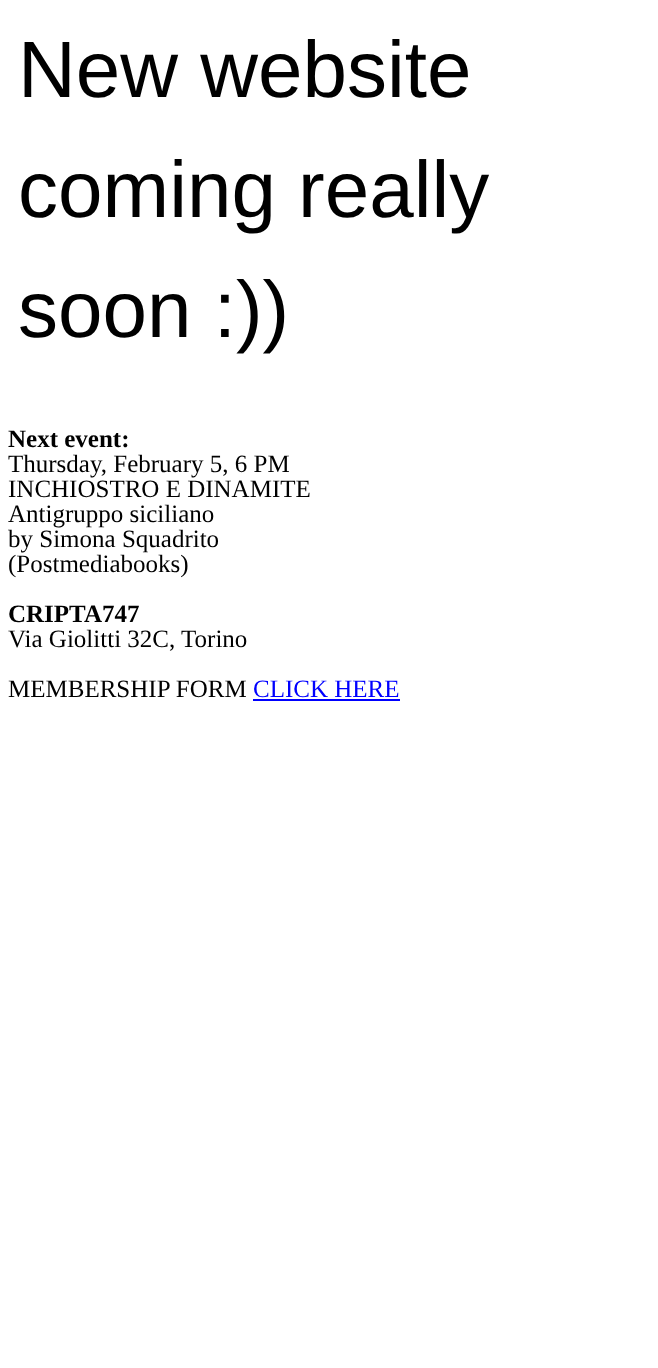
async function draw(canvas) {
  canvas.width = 658
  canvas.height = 1368
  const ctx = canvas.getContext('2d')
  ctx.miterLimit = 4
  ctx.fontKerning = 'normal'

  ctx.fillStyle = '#fff'
  ctx.fillRect(0, 0, 658, 1368)
  ctx.font = '80px Liberation Sans'
  ctx.fillStyle = '#000'
  ctx.fillText('New website', 18, 97)
  ctx.fillText('coming really', 18, 217)
  ctx.fillText('soon :))', 18, 337)
  ctx.font = 'bold 25px Liberation Serif'
  ctx.fillText('Next event:', 8, 447)
  ctx.font = '25px Liberation Serif'
  ctx.fillText('Thursday, February 5, 6 PM', 8, 472)
  ctx.fillText('INCHIOSTRO E DINAMITE', 8, 497)
  ctx.fillText('Antigruppo siciliano', 8, 522)
  ctx.fillText('by Simona Squadrito', 8, 547)
  ctx.fillText('(Postmediabooks)', 8, 572)
  ctx.font = 'bold 25px Liberation Serif'
  ctx.fillText('CRIPTA747', 8, 622)
  ctx.font = '25px Liberation Serif'
  ctx.fillText('Via Giolitti 32C, Torino', 8, 647)
  ctx.fillText('MEMBERSHIP FORM', 8, 697)
  ctx.fillStyle = '#00f'
  ctx.fillText('CLICK HERE', 253, 697)
  ctx.fillRect(253, 699, 147, 2)
}

draw(document.querySelector('canvas'))
